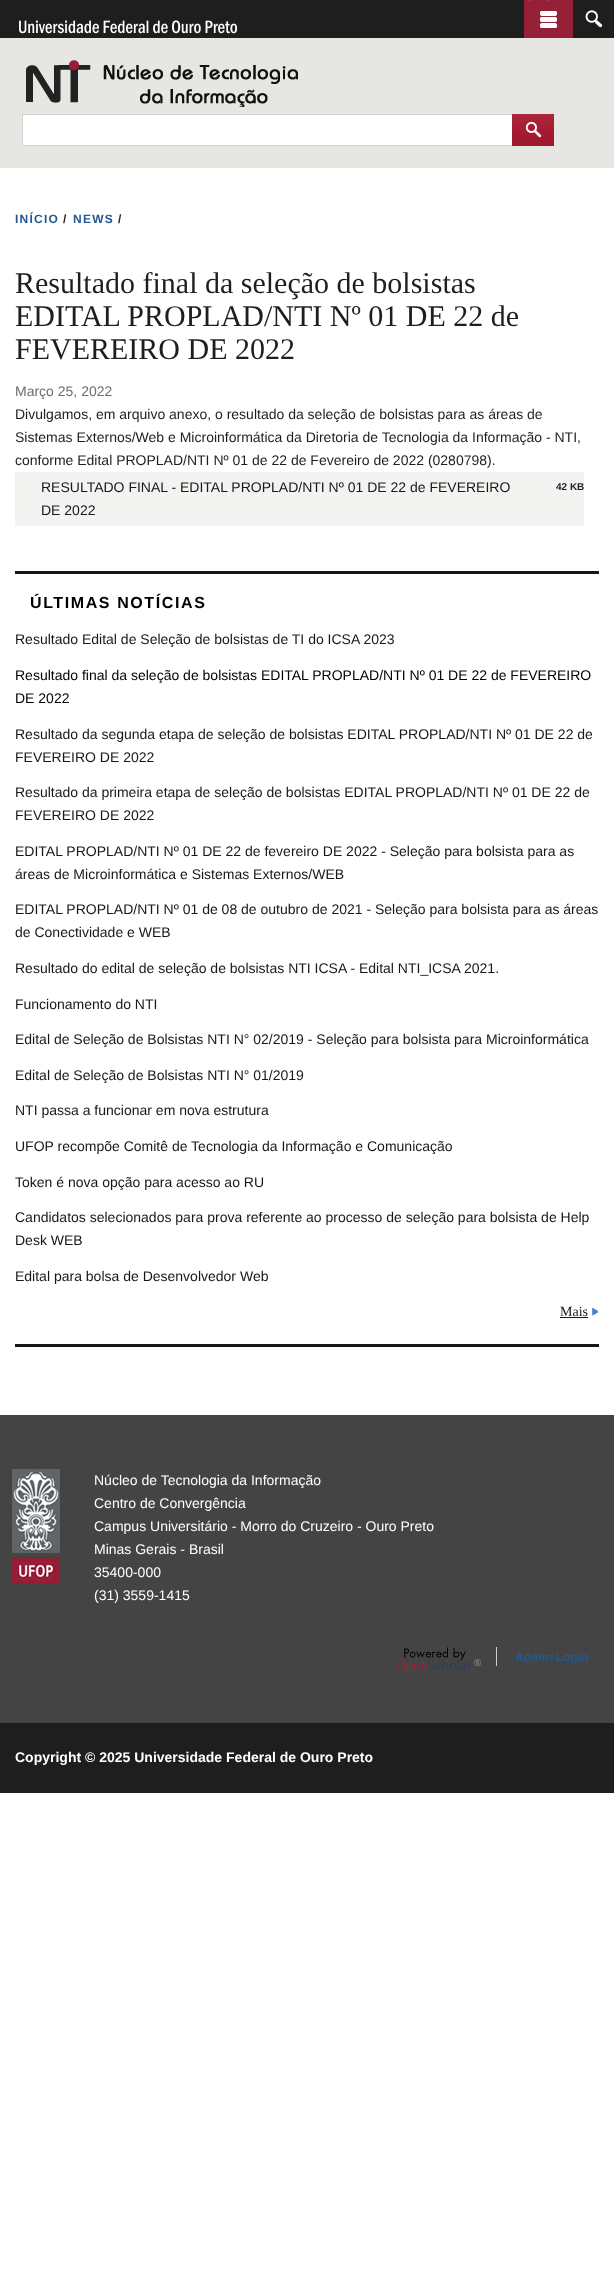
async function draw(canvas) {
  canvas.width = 614
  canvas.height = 2269
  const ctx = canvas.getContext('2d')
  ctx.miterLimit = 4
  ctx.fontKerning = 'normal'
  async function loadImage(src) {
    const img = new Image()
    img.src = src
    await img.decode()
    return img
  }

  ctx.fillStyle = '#fff'
  ctx.fillRect(0, 0, 614, 2269)
  ctx.fillStyle = '#1e1e1e'
  ctx.fillRect(0, 0, 614, 38)
  ctx.drawImage(await loadImage('image0.png'), 19, 20, 219, 14)
  ctx.fillStyle = '#962038'
  ctx.fillRect(524, 0, 49, 38)
  ctx.drawImage(await loadImage('image1.png'), 529, 0, 28, 28)
  ctx.drawImage(await loadImage('image2.png'), 585, 10, 18, 18)
  ctx.fillStyle = '#e6e6e3'
  ctx.fillRect(0, 38, 614, 130)
  ctx.drawImage(await loadImage('image3.png'), 26, 60, 272, 47)
  ctx.fillStyle = '#fff'
  ctx.fillRect(23, 115, 489, 30)
  ctx.strokeStyle = '#d4d4d2'
  ctx.strokeRect(22.5, 114.5, 527, 31)
  ctx.drawImage(await loadImage('image4.png'), 512, 114, 42, 32)
  ctx.letterSpacing = '1.25px'
  ctx.font = 'bold 12px Liberation Sans'
  ctx.fillStyle = '#215990'
  ctx.fillText('INÍCIO', 15, 223)
  ctx.fillStyle = '#1e1e1e'
  ctx.fillText('/', 63, 223)
  ctx.fillStyle = '#215990'
  ctx.fillText('NEWS', 73, 223)
  ctx.fillStyle = '#1e1e1e'
  ctx.fillText('/', 118, 223)
  ctx.letterSpacing = '0px'
  ctx.font = '30px Liberation Serif'
  ctx.fillText('Resultado final da seleção de bolsistas', 15, 293)
  ctx.fillText('EDITAL PROPLAD/NTI Nº 01 DE 22 de', 15, 326)
  ctx.fillText('FEVEREIRO DE 2022', 15, 359)
  ctx.font = '14px Liberation Sans'
  ctx.fillStyle = '#6d6d6d'
  ctx.fillText('Março 25, 2022', 15, 396)
  ctx.fillStyle = '#1e1e1e'
  ctx.fillText('Divulgamos, em arquivo anexo, o resultado da seleção de bolsistas para as áreas de', 15, 419)
  ctx.fillText('Sistemas Externos/Web e Microinformática da Diretoria de Tecnologia da Informação - NTI,', 15, 442)
  ctx.fillText('conforme Edital PROPLAD/NTI Nº 01 de 22 de Fevereiro de 2022 (0280798).', 15, 465)
  ctx.fillStyle = '#f3f3f1'
  ctx.fillRect(15, 472, 569, 54)
  ctx.fillStyle = '#171717'
  ctx.fillText('RESULTADO FINAL - EDITAL PROPLAD/NTI Nº 01 DE 22 de FEVEREIRO', 41, 492)
  ctx.fillText('DE 2022', 41, 515)
  ctx.font = 'bold 10px Liberation Sans'
  ctx.fillStyle = '#1e1e1e'
  ctx.fillText('42 KB', 556, 490)
  ctx.fillStyle = '#171717'
  ctx.fillRect(15, 571, 584, 3)
  ctx.letterSpacing = '1.6px'
  ctx.font = 'bold 16px Liberation Sans'
  ctx.fillStyle = '#000'
  ctx.fillText('ÚLTIMAS NOTÍCIAS', 30, 608)
  ctx.letterSpacing = '0px'
  ctx.font = '14px Liberation Sans'
  ctx.fillStyle = '#171717'
  ctx.fillText('Resultado Edital de Seleção de bolsistas de TI do ICSA 2023', 15, 644)
  ctx.fillStyle = '#000'
  ctx.fillText('Resultado final da seleção de bolsistas EDITAL PROPLAD/NTI Nº 01 DE 22 de FEVEREIRO', 15, 680)
  ctx.fillText('DE 2022', 15, 703)
  ctx.fillStyle = '#171717'
  ctx.fillText('Resultado da segunda etapa de seleção de bolsistas EDITAL PROPLAD/NTI Nº 01 DE 22 de', 15, 739)
  ctx.fillText('FEVEREIRO DE 2022', 15, 762)
  ctx.fillText('Resultado da primeira etapa de seleção de bolsistas EDITAL PROPLAD/NTI Nº 01 DE 22 de', 15, 797)
  ctx.fillText('FEVEREIRO DE 2022', 15, 820)
  ctx.fillText('EDITAL PROPLAD/NTI Nº 01 DE 22 de fevereiro DE 2022 - Seleção para bolsista para as', 15, 856)
  ctx.fillText('áreas de Microinformática e Sistemas Externos/WEB', 15, 879)
  ctx.fillText('EDITAL PROPLAD/NTI Nº 01 de 08 de outubro de 2021 - Seleção para bolsista para as áreas', 15, 914)
  ctx.fillText('de Conectividade e WEB', 15, 937)
  ctx.fillText('Resultado do edital de seleção de bolsistas NTI ICSA - Edital NTI_ICSA 2021.', 15, 973)
  ctx.fillText('Funcionamento do NTI', 15, 1009)
  ctx.fillText('Edital de Seleção de Bolsistas NTI N° 02/2019 - Seleção para bolsista para Microinformática', 15, 1044)
  ctx.fillText('Edital de Seleção de Bolsistas NTI N° 01/2019', 15, 1080)
  ctx.fillText('NTI passa a funcionar em nova estrutura', 15, 1115)
  ctx.fillText('UFOP recompõe Comitê de Tecnologia da Informação e Comunicação', 15, 1151)
  ctx.fillText('Token é nova opção para acesso ao RU', 15, 1187)
  ctx.fillText('Candidatos selecionados para prova referente ao processo de seleção para bolsista de Help', 15, 1222)
  ctx.fillText('Desk WEB', 15, 1245)
  ctx.fillText('Edital para bolsa de Desenvolvedor Web', 15, 1281)
  ctx.font = '14px Liberation Serif'
  ctx.fillText('Mais', 560, 1316)
  ctx.fillRect(560, 1317, 28, 1)
  ctx.drawImage(await loadImage('image5.png'), 592, 1307, 6, 9)
  ctx.fillRect(15, 1344, 584, 3)
  ctx.fillStyle = '#444'
  ctx.fillRect(0, 1415, 614, 308)
  ctx.drawImage(await loadImage('image6.png'), 12, 1469, 48, 115)
  ctx.font = '14px Liberation Sans'
  ctx.fillStyle = '#fff'
  ctx.fillText('Núcleo de Tecnologia da Informação', 94, 1485)
  ctx.fillText('Centro de Convergência', 94, 1508)
  ctx.fillText('Campus Universitário - Morro do Cruzeiro - Ouro Preto', 94, 1531)
  ctx.fillText('Minas Gerais - Brasil', 94, 1554)
  ctx.fillText('35400-000', 94, 1577)
  ctx.fillText('(31) 3559-1415', 94, 1600)
  ctx.drawImage(await loadImage('image7.png'), 396, 1647, 85, 26)
  ctx.fillStyle = '#ccc'
  ctx.fillRect(496, 1647, 1, 19)
  ctx.font = 'bold 12px Liberation Sans'
  ctx.fillStyle = '#215990'
  ctx.fillText('Admin Login', 515, 1661)
  ctx.fillStyle = '#1e1e1e'
  ctx.fillRect(0, 1723, 614, 70)
  ctx.font = 'bold 14px Liberation Sans'
  ctx.fillStyle = '#fff'
  ctx.fillText('Copyright © 2025 Universidade Federal de Ouro Preto', 15, 1762)
}

draw(document.querySelector('canvas'))
